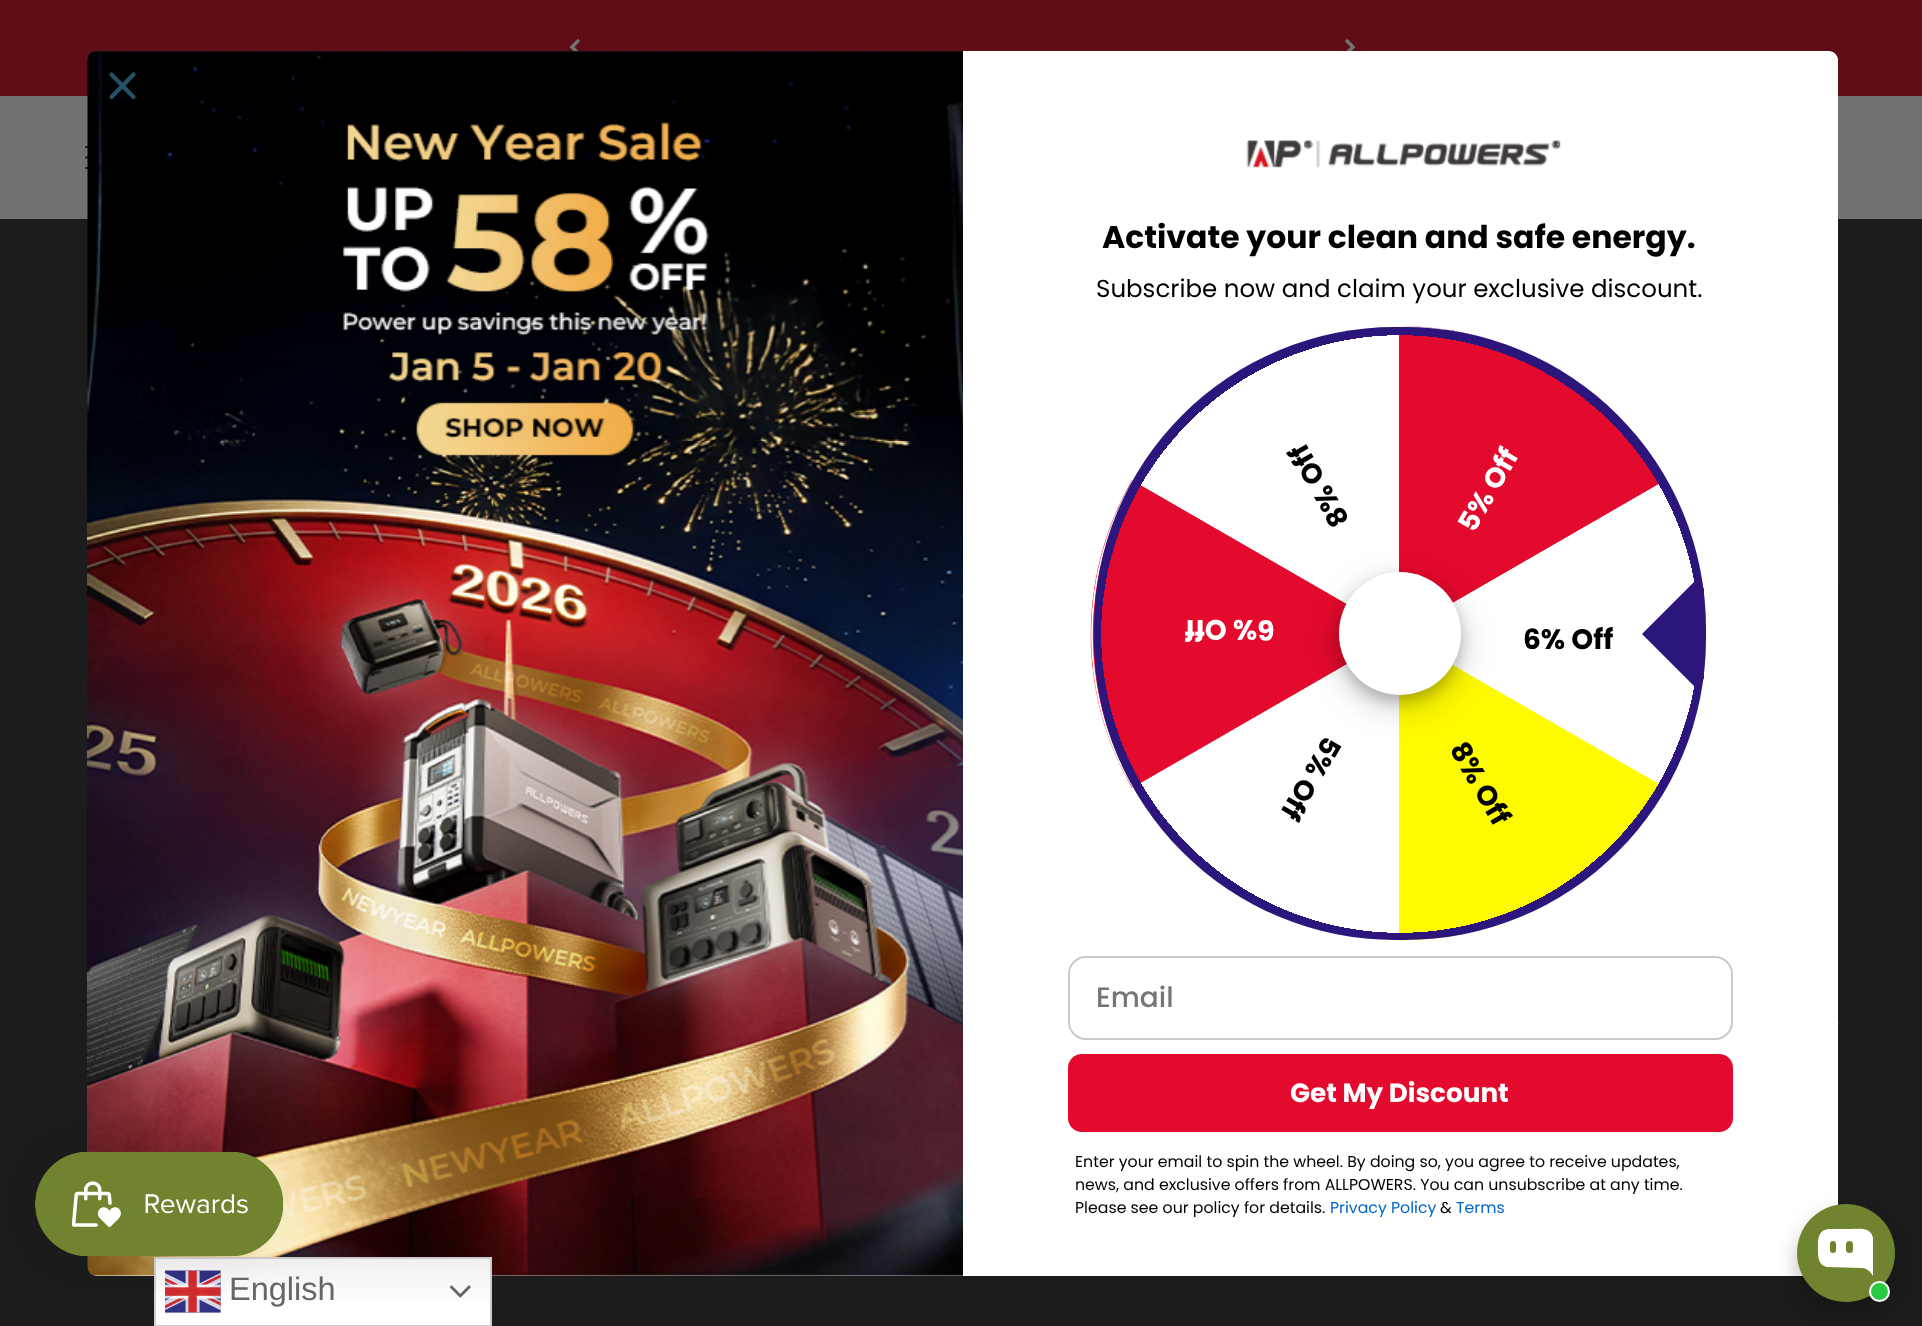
async function draw(canvas) {
  canvas.width = 1922
  canvas.height = 1326
  const ctx = canvas.getContext('2d')
  ctx.miterLimit = 4
  ctx.fontKerning = 'normal'
  async function loadImage(src) {
    const img = new Image()
    img.src = src
    await img.decode()
    return img
  }
  let gradient

  ctx.fillStyle = '#1c1c1c'
  ctx.fillRect(0, 0, 1922, 1326)
  ctx.fillStyle = '#5f0d17'
  ctx.fillRect(0, 0, 1922, 96)
  ctx.beginPath()
  ctx.moveTo(579, 40)
  ctx.lineTo(572, 47)
  ctx.lineTo(579, 54)
  ctx.strokeStyle = '#727272'
  ctx.lineWidth = 3.5
  ctx.stroke()
  ctx.beginPath()
  ctx.moveTo(1346, 54)
  ctx.lineTo(1353, 47)
  ctx.lineTo(1346, 40)
  ctx.stroke()
  ctx.fillStyle = '#727272'
  ctx.fillRect(0, 96, 1922, 123)
  ctx.beginPath()
  ctx.moveTo(86, 147)
  ctx.lineTo(121, 147)
  ctx.moveTo(86, 157.5)
  ctx.lineTo(121, 157.5)
  ctx.moveTo(86, 168)
  ctx.lineTo(121, 168)
  ctx.strokeStyle = '#161616'
  ctx.lineWidth = 1.8
  ctx.lineCap = 'round'
  ctx.stroke()
  ctx.drawImage(await loadImage('image0.png'), 1838, 149, 1, 2)
  ctx.beginPath()
  ctx.roundRect(1301, 493, 537, 103, 13)
  ctx.strokeStyle = '#262626'
  ctx.lineWidth = 2
  ctx.stroke()
  ctx.beginPath()
  ctx.moveTo(1823.5, 1022)
  ctx.lineTo(1830.5, 1029)
  ctx.lineTo(1837.5, 1022)
  ctx.strokeStyle = '#727272'
  ctx.lineWidth = 3.5
  ctx.lineCap = 'butt'
  ctx.stroke()
  ctx.fillStyle = '#fff'
  ctx.beginPath()
  ctx.roundRect(88, 51, 1750, 1225, 9)
  ctx.fill()
  ctx.drawImage(await loadImage('image1.png'), 87, 51, 876, 1225)
  ctx.beginPath()
  ctx.moveTo(111.5, 74.5)
  ctx.lineTo(133.5, 97)
  ctx.moveTo(111.5, 97)
  ctx.lineTo(133.5, 74.5)
  ctx.closePath()
  ctx.strokeStyle = '#245168'
  ctx.lineWidth = 4.2
  ctx.lineCap = 'round'
  ctx.lineJoin = 'round'
  ctx.stroke()
  ctx.drawImage(await loadImage('image2.png'), 1246, 140, 315, 28)
  ctx.font = 'bold 31.5px Poppins'
  ctx.fillStyle = '#000'
  ctx.fillText('Activate your clean and safe energy.', 1102, 248)
  ctx.font = '24.5px Poppins'
  ctx.fillText('Subscribe now and claim your exclusive discount.', 1096, 297)
  ctx.fillStyle = '#e40a2d'
  ctx.beginPath()
  ctx.moveTo(1399, 634)
  ctx.lineTo(1399, 326)
  ctx.bezierCurveTo(1509, 326, 1610, 383, 1666, 479)
  ctx.lineTo(1666, 480)
  ctx.closePath()
  ctx.fill()
  ctx.fillStyle = '#fff'
  ctx.beginPath()
  ctx.moveTo(1400, 328)
  ctx.lineTo(1399, 328)
  ctx.lineTo(1399, 326)
  ctx.bezierCurveTo(1509, 326, 1610, 383, 1666, 479)
  ctx.lineTo(1666, 480)
  ctx.lineTo(1665, 481)
  ctx.bezierCurveTo(1612, 389, 1513, 328, 1400, 328)
  ctx.closePath()
  ctx.fill()
  ctx.beginPath()
  ctx.moveTo(1399, 634)
  ctx.lineTo(1666, 480)
  ctx.bezierCurveTo(1721, 575, 1721, 693, 1666, 788)
  ctx.closePath()
  ctx.fill()
  ctx.save()
  ctx.beginPath()
  ctx.moveTo(1399, 634)
  ctx.lineTo(1666, 480)
  ctx.lineTo(1820, 747)
  ctx.lineTo(1666, 788)
  ctx.closePath()
  ctx.clip()
  ctx.beginPath()
  ctx.moveTo(1665, 480.5)
  ctx.bezierCurveTo(1750, 627.5, 1699.5, 815.5, 1552.5, 900)
  ctx.bezierCurveTo(1406, 985, 1218, 934.5, 1133, 788)
  ctx.bezierCurveTo(1048.5, 641, 1098.5, 453, 1245.5, 368)
  ctx.bezierCurveTo(1392.5, 283.5, 1580.5, 334, 1665, 480.5)
  ctx.closePath()
  ctx.strokeStyle = '#fff'
  ctx.lineWidth = 1.7
  ctx.lineCap = 'butt'
  ctx.lineJoin = 'miter'
  ctx.stroke()
  ctx.restore()
  ctx.font = 'bold 28px Poppins'
  ctx.fillStyle = '#000'
  ctx.fillText('6% Off', 1523, 649)
  ctx.fillStyle = '#fefa00'
  ctx.beginPath()
  ctx.moveTo(1399, 634)
  ctx.lineTo(1666, 788)
  ctx.bezierCurveTo(1611, 883, 1509, 942, 1399, 942)
  ctx.closePath()
  ctx.fill()
  ctx.save()
  ctx.beginPath()
  ctx.moveTo(1399, 634)
  ctx.lineTo(1666, 788)
  ctx.lineTo(1512, 1055)
  ctx.lineTo(1399, 942)
  ctx.closePath()
  ctx.clip()
  ctx.beginPath()
  ctx.moveTo(1665, 788)
  ctx.bezierCurveTo(1580.5, 934.5, 1392.5, 985, 1245.5, 900)
  ctx.bezierCurveTo(1098.5, 815.5, 1048.5, 627.5, 1133, 480.5)
  ctx.bezierCurveTo(1218, 334, 1406, 283.5, 1552.5, 368)
  ctx.bezierCurveTo(1699.5, 453, 1750, 641, 1665, 788)
  ctx.closePath()
  ctx.strokeStyle = '#fff'
  ctx.lineWidth = 1.7
  ctx.lineCap = 'butt'
  ctx.lineJoin = 'miter'
  ctx.stroke()
  ctx.restore()
  ctx.save()
  ctx.beginPath()
  ctx.moveTo(1399, 634)
  ctx.lineTo(1399, 942)
  ctx.lineTo(1091, 942)
  ctx.lineTo(1132.5, 788)
  ctx.closePath()
  ctx.clip()
  ctx.beginPath()
  ctx.moveTo(1399, 941.5)
  ctx.bezierCurveTo(1229.5, 941.5, 1092, 804, 1092, 634)
  ctx.bezierCurveTo(1092, 464.5, 1229.5, 327, 1399, 327)
  ctx.bezierCurveTo(1568.5, 327, 1706, 464.5, 1706, 634)
  ctx.bezierCurveTo(1706, 804, 1568.5, 941.5, 1399, 941.5)
  ctx.closePath()
  ctx.strokeStyle = '#fff'
  ctx.lineWidth = 1.8
  ctx.lineCap = 'butt'
  ctx.lineJoin = 'miter'
  ctx.stroke()
  ctx.restore()
  ctx.fillStyle = '#000'
  ctx.save()
  ctx.translate(1325, 734)
  ctx.rotate(120 * Math.PI / 180)
  ctx.fillText('5% Off', 0, 0)
  ctx.restore()
  ctx.fillStyle = '#e40a2d'
  ctx.beginPath()
  ctx.moveTo(1399, 634)
  ctx.lineTo(1132, 788)
  ctx.bezierCurveTo(1077, 693, 1077, 576, 1132, 480)
  ctx.closePath()
  ctx.fill()
  ctx.save()
  ctx.beginPath()
  ctx.moveTo(1399, 634)
  ctx.lineTo(1132.5, 788)
  ctx.lineTo(978.5, 521.5)
  ctx.lineTo(1132.5, 480)
  ctx.closePath()
  ctx.clip()
  ctx.beginPath()
  ctx.moveTo(1133, 788)
  ctx.bezierCurveTo(1048.5, 641, 1098.5, 453, 1245.5, 368)
  ctx.bezierCurveTo(1392.5, 283.5, 1580.5, 334, 1665, 480.5)
  ctx.bezierCurveTo(1750, 627.5, 1699.5, 815.5, 1552.5, 900)
  ctx.bezierCurveTo(1406, 985, 1218, 934.5, 1133, 788)
  ctx.closePath()
  ctx.strokeStyle = '#fff'
  ctx.lineWidth = 1.7
  ctx.lineCap = 'butt'
  ctx.lineJoin = 'miter'
  ctx.stroke()
  ctx.restore()
  ctx.fillStyle = '#fff'
  ctx.beginPath()
  ctx.moveTo(1399, 634)
  ctx.lineTo(1399, 326)
  ctx.bezierCurveTo(1298, 326, 1199, 376, 1141, 466)
  ctx.lineTo(1132, 480)
  ctx.closePath()
  ctx.fill()
  ctx.save()
  ctx.beginPath()
  ctx.moveTo(1399, 634)
  ctx.lineTo(1132.5, 480)
  ctx.lineTo(1286.5, 213.5)
  ctx.lineTo(1399, 326)
  ctx.closePath()
  ctx.clip()
  ctx.beginPath()
  ctx.moveTo(1133, 480.5)
  ctx.bezierCurveTo(1218, 334, 1406, 283.5, 1552.5, 368)
  ctx.bezierCurveTo(1699.5, 453, 1750, 641, 1665, 788)
  ctx.bezierCurveTo(1580.5, 934.5, 1392.5, 985, 1245.5, 900)
  ctx.bezierCurveTo(1098.5, 815.5, 1048.5, 627.5, 1133, 480.5)
  ctx.closePath()
  ctx.strokeStyle = '#fff'
  ctx.lineWidth = 1.7
  ctx.lineCap = 'butt'
  ctx.lineJoin = 'miter'
  ctx.stroke()
  ctx.restore()
  ctx.fillStyle = '#000'
  ctx.save()
  ctx.translate(1350, 520)
  ctx.rotate(-120 * Math.PI / 180)
  ctx.fillText('8% Off', 0, 0)
  ctx.restore()
  ctx.fillStyle = '#fff'
  ctx.save()
  ctx.translate(1474, 534)
  ctx.rotate(-60 * Math.PI / 180)
  ctx.fillText('5% Off', 0, 0)
  ctx.restore()
  ctx.save()
  ctx.translate(1275, 620)
  ctx.rotate(180 * Math.PI / 180)
  ctx.fillText('6% Off', 0, 0)
  ctx.restore()
  ctx.fillStyle = '#000'
  ctx.save()
  ctx.translate(1449, 749)
  ctx.rotate(60 * Math.PI / 180)
  ctx.fillText('8% Off', 0, 0)
  ctx.restore()
  ctx.fillStyle = '#00000033'
  ctx.filter = 'blur(17.5px)'
  ctx.beginPath()
  ctx.roundRect(1339, 583, 122, 122, 61)
  ctx.fill()
  ctx.filter = 'none'
  ctx.filter = 'blur(7px)'
  ctx.beginPath()
  ctx.roundRect(1339, 579, 122, 123, 61)
  ctx.fill()
  ctx.filter = 'none'
  ctx.fillStyle = '#fff'
  ctx.beginPath()
  ctx.roundRect(1339, 572, 122, 123, 61)
  ctx.fill()
  ctx.fillStyle = '#2c167b'
  ctx.beginPath()
  ctx.moveTo(1704, 678)
  ctx.bezierCurveTo(1702, 682, 1700, 686, 1697, 689)
  ctx.lineTo(1642, 634)
  ctx.lineTo(1697, 579)
  ctx.bezierCurveTo(1700, 582, 1702, 585, 1704, 589)
  ctx.closePath()
  ctx.fill()
  gradient = ctx.createRadialGradient(1400, 634, 0, 1400, 634, 433)
  gradient.addColorStop(0.69, '#2c167b00')
  gradient.addColorStop(0.69, '#2c167b')
  ctx.fillStyle = gradient
  ctx.beginPath()
  ctx.roundRect(1094, 327, 612, 613, 301)
  ctx.fill()
  ctx.beginPath()
  ctx.roundRect(1069, 957, 663, 82, 17)
  ctx.strokeStyle = '#cacaca'
  ctx.lineWidth = 2
  ctx.lineJoin = 'miter'
  ctx.stroke()
  ctx.font = '500 28px Poppins'
  ctx.fillStyle = '#767676'
  ctx.fillText('Email', 1096, 1007)
  ctx.fillStyle = '#e40a2d'
  ctx.beginPath()
  ctx.roundRect(1068, 1054, 665, 78, 14)
  ctx.fill()
  ctx.font = 'bold 26.25px Poppins'
  ctx.fillStyle = '#fff'
  ctx.fillText('Get My Discount', 1290, 1102)
  ctx.font = '15.75px Poppins'
  ctx.fillStyle = '#000'
  ctx.fillText('Enter your email to spin the wheel. By doing so, you agree to receive updates,', 1075, 1167)
  ctx.fillText('news, and exclusive offers from ALLPOWERS. You can unsubscribe at any time.', 1075, 1190)
  ctx.fillText('Please see our policy for details.', 1075, 1213)
  ctx.fillStyle = '#06c'
  ctx.fillText('Privacy Policy', 1330, 1213)
  ctx.fillStyle = '#000'
  ctx.fillText('&', 1440, 1213)
  ctx.fillStyle = '#06c'
  ctx.fillText('Terms', 1456, 1213)
  gradient = ctx.createLinearGradient(323, 1257, 323, 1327)
  gradient.addColorStop(0, '#efefef')
  gradient.addColorStop(0.7, '#fff')
  ctx.fillStyle = gradient
  ctx.fillRect(156, 1259, 334, 66)
  ctx.strokeStyle = '#ccc'
  ctx.strokeRect(155, 1258, 336, 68)
  ctx.drawImage(await loadImage('image4.png'), 165, 1270, 56, 43)
  ctx.fillStyle = '#0000000d'
  ctx.filter = 'blur(22px)'
  ctx.beginPath()
  ctx.roundRect(35, 1152, 249, 105, 52.5)
  ctx.fill()
  ctx.filter = 'none'
  ctx.drawImage(await loadImage('image3.png'), 35, 1151, 249, 106)
  ctx.fillStyle = '#00000040'
  ctx.filter = 'blur(10.5px)'
  ctx.beginPath()
  ctx.roundRect(1797, 1215, 98, 98, 49)
  ctx.fill()
  ctx.filter = 'none'
  ctx.fillStyle = '#708430'
  ctx.beginPath()
  ctx.arc(1846, 1253, 49, 0, 2 * Math.PI)
  ctx.fill()
  ctx.fillStyle = '#fff'
  ctx.beginPath()
  ctx.moveTo(1830, 1229)
  ctx.bezierCurveTo(1819, 1229, 1818, 1238, 1818, 1245)
  ctx.bezierCurveTo(1818, 1254, 1817, 1265, 1827, 1267)
  ctx.lineTo(1862, 1268)
  ctx.bezierCurveTo(1865, 1268, 1869, 1270, 1871, 1273)
  ctx.lineTo(1873, 1276)
  ctx.lineTo(1873, 1238)
  ctx.bezierCurveTo(1871, 1227, 1859, 1229, 1851, 1229)
  ctx.closePath()
  ctx.fill('evenodd')
  ctx.fillStyle = '#708430'
  ctx.beginPath()
  ctx.roundRect(1830, 1241, 6, 12, 3)
  ctx.fill()
  ctx.beginPath()
  ctx.roundRect(1846, 1241, 7, 12, 3.5)
  ctx.fill()
  ctx.fillStyle = '#27ca40'
  ctx.beginPath()
  ctx.arc(1879.5, 1291.5, 9.5, 0, 2 * Math.PI)
  ctx.fill()
  ctx.strokeStyle = '#fff'
  ctx.stroke()
  ctx.font = '32.5px Liberation Sans'
  ctx.fillStyle = '#666'
  ctx.fillText('English', 229, 1300)
  ctx.drawImage(await loadImage('image5.png'), 450, 1285, 21, 13)
}

draw(document.querySelector('canvas'))
